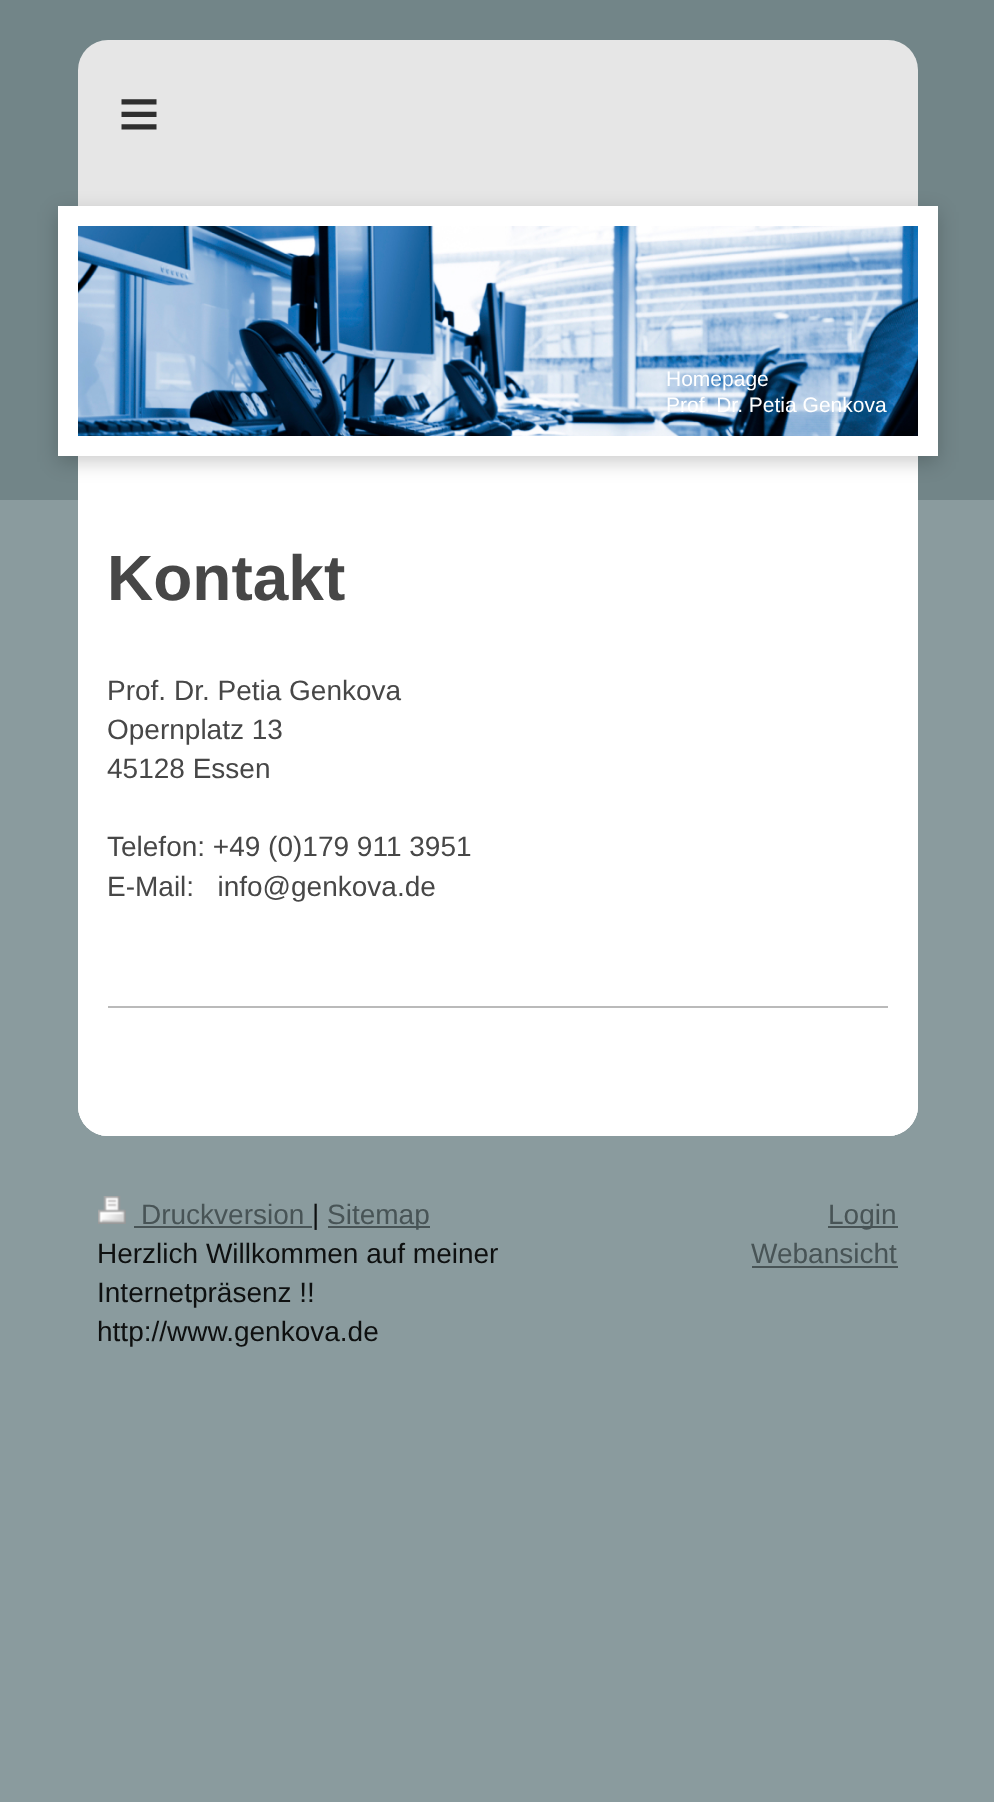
async function draw(canvas) {
  canvas.width = 994
  canvas.height = 1802
  const ctx = canvas.getContext('2d')
  ctx.miterLimit = 4
  ctx.fontKerning = 'normal'
  async function loadImage(src) {
    const img = new Image()
    img.src = src
    await img.decode()
    return img
  }

  ctx.fillStyle = '#8a9b9e'
  ctx.fillRect(0, 0, 994, 1802)
  ctx.fillStyle = '#728588'
  ctx.fillRect(0, 0, 994, 500)
  ctx.fillStyle = '#e6e6e6'
  ctx.beginPath()
  ctx.roundRect(78, 40, 840, 1096, 30)
  ctx.fill()
  ctx.letterSpacing = '21px'
  ctx.font = '72px Liberation Sans'
  ctx.fillStyle = '#2e2e2e'
  ctx.fillText('≡', 118, 138)
  ctx.fillStyle = '#fff'
  ctx.beginPath()
  ctx.roundRect(78, 456, 840, 680, [0, 0, 30, 30])
  ctx.fill()
  ctx.fillStyle = '#00000033'
  ctx.filter = 'blur(10px)'
  ctx.beginPath()
  ctx.rect(58, 212, 880, 250)
  ctx.fill()
  ctx.filter = 'none'
  ctx.strokeStyle = '#fff'
  ctx.lineWidth = 20
  ctx.strokeRect(68, 216, 860, 230)
  ctx.drawImage(await loadImage('image0.png'), 78, 226, 840, 210)
  ctx.letterSpacing = '0px'
  ctx.font = '21px Liberation Sans'
  ctx.fillStyle = '#fff'
  ctx.fillText('Homepage', 666, 386)
  ctx.fillText('Prof. Dr. Petia Genkova', 666, 412)
  ctx.font = 'bold 64px Liberation Sans'
  ctx.fillStyle = '#474747'
  ctx.fillText('Kontakt', 107, 600)
  ctx.font = '28px Liberation Sans'
  ctx.fillText('Prof. Dr. Petia Genkova', 107, 700)
  ctx.fillText('Opernplatz 13', 107, 739)
  ctx.fillText('45128 Essen', 107, 778)
  ctx.fillText('Telefon: +49 (0)179 911 3951', 107, 856)
  ctx.fillText('E-Mail:   info@genkova.de', 107, 896)
  ctx.fillStyle = '#bababa'
  ctx.fillRect(108, 1006, 780, 2)
  ctx.fillStyle = '#fff'
  ctx.beginPath()
  ctx.roundRect(78, 1096, 840, 40, [0, 0, 30, 30])
  ctx.fill()
  ctx.drawImage(await loadImage('image1.png'), 98, 1196, 28, 28)
  ctx.fillStyle = '#485456'
  ctx.fillText('Druckversion', 141, 1224)
  ctx.fillRect(134, 1226, 178, 2)
  ctx.fillStyle = '#0e1010'
  ctx.fillText('|', 312, 1224)
  ctx.fillStyle = '#485456'
  ctx.fillRect(328, 1226, 102, 2)
  ctx.fillText('Sitemap', 327, 1224)
  ctx.fillStyle = '#0e1010'
  ctx.fillText('Herzlich Willkommen auf meiner', 97, 1263)
  ctx.fillText('Internetpräsenz !!', 97, 1302)
  ctx.fillText('http://www.genkova.de', 97, 1341)
  ctx.fillStyle = '#485456'
  ctx.fillRect(828, 1226, 70, 2)
  ctx.fillText('Login', 828, 1224)
  ctx.fillText('Webansicht', 751, 1263)
  ctx.fillRect(752, 1266, 146, 2)
}

draw(document.querySelector('canvas'))
